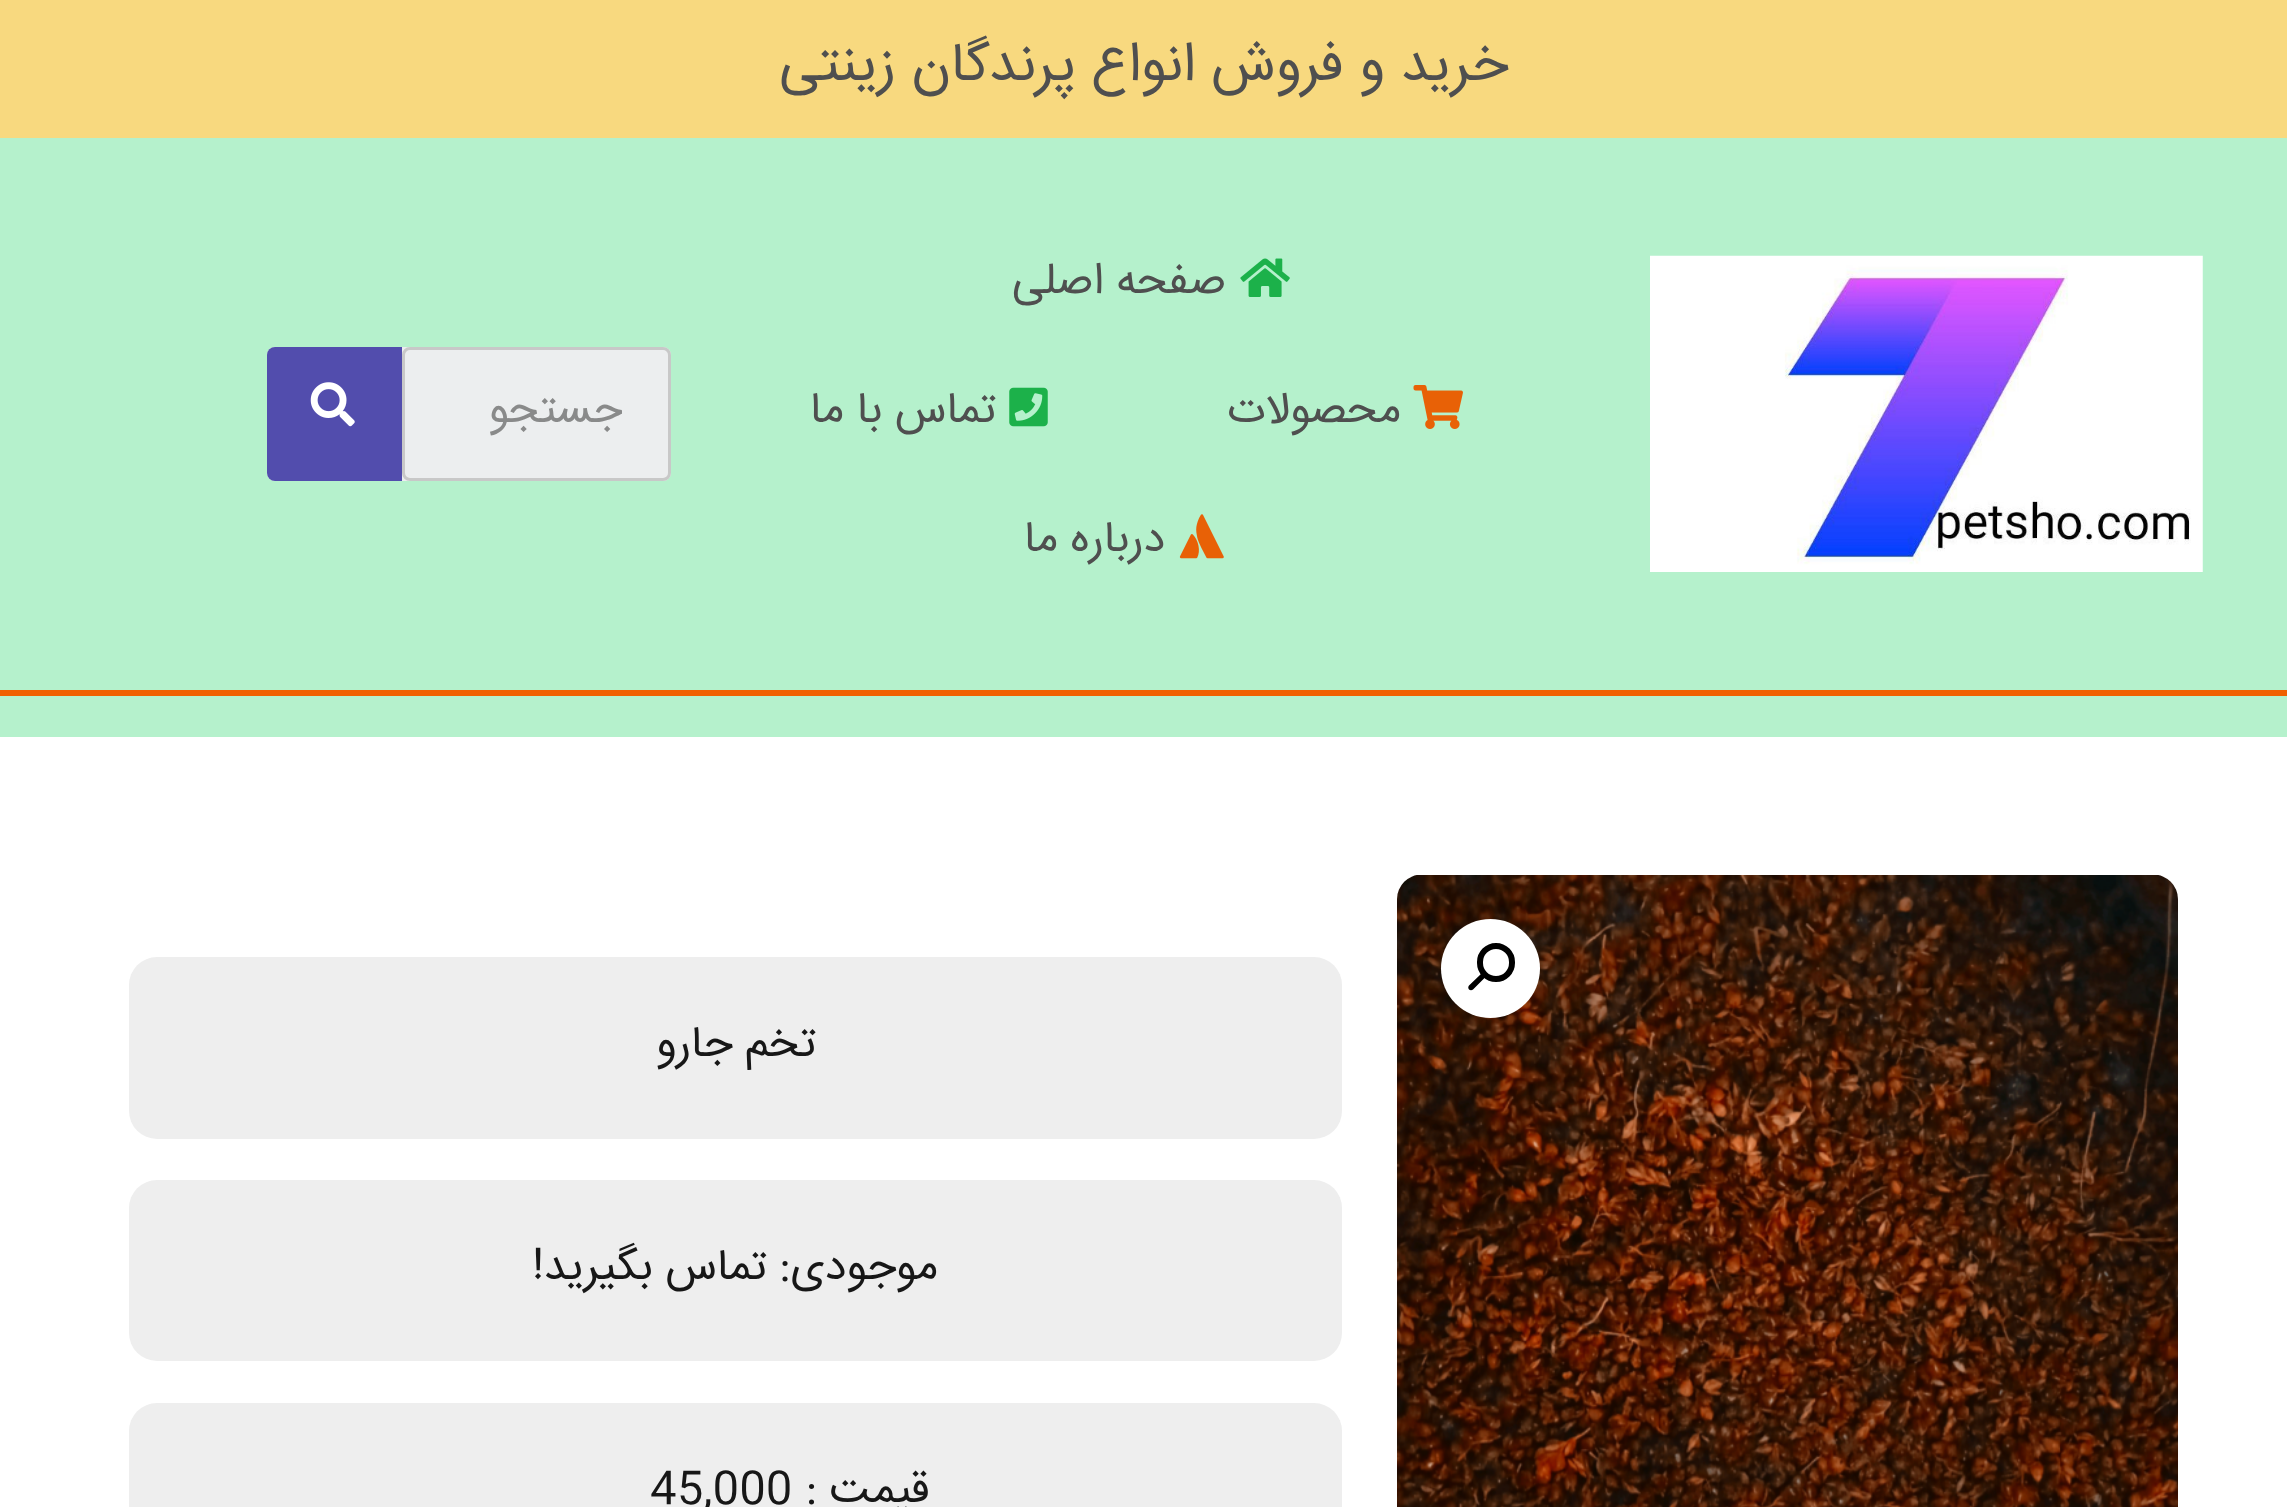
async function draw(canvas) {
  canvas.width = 2287
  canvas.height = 1507
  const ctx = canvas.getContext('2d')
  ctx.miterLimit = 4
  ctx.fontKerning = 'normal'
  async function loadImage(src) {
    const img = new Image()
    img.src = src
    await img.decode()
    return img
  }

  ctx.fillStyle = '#b5f1cc'
  ctx.fillRect(0, 0, 2287, 1507)
  ctx.fillStyle = '#f8d97f'
  ctx.fillRect(0, 0, 2287, 138)
  ctx.direction = 'rtl'
  ctx.font = '55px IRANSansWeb'
  ctx.fillStyle = '#4f4f4f'
  ctx.fillText('خرید و فروش انواع پرندگان زینتی', 1508, 80)
  ctx.fillStyle = '#f06100'
  ctx.fillRect(0, 690, 2287, 6)
  ctx.drawImage(await loadImage('image0.png'), 1650, 255, 553, 317)
  ctx.drawImage(await loadImage('image1.png'), 1240, 258, 50, 39)
  ctx.font = '44px IRANSansWeb'
  ctx.fillStyle = '#4f4f4f'
  ctx.fillText('صفحه اصلی', 1226, 293)
  ctx.drawImage(await loadImage('image2.png'), 1413, 385, 50, 44)
  ctx.fillText('محصولات', 1401, 422)
  ctx.drawImage(await loadImage('image3.png'), 1009, 387, 39, 40)
  ctx.fillText('تماس با ما', 996, 422)
  ctx.drawImage(await loadImage('image4.png'), 1179, 514, 45, 45)
  ctx.fillText('درباره ما', 1165, 551)
  ctx.fillStyle = '#eceeef'
  ctx.beginPath()
  ctx.roundRect(267, 347, 404, 134, 8)
  ctx.fill()
  ctx.beginPath()
  ctx.roundRect(403.5, 348.5, 266, 131, 6.5)
  ctx.strokeStyle = '#c8c8c8'
  ctx.lineWidth = 3
  ctx.stroke()
  ctx.save()
  ctx.beginPath()
  ctx.rect(490, 377, 132, 69)
  ctx.clip()
  ctx.fillStyle = '#898a8a'
  ctx.fillText('جستجو ...', 622, 422)
  ctx.restore()
  ctx.fillStyle = '#524dad'
  ctx.beginPath()
  ctx.roundRect(267, 347, 135, 134, [8, 0, 0, 8])
  ctx.fill()
  ctx.drawImage(await loadImage('image5.png'), 310, 382, 45, 45)
  ctx.fillStyle = '#fff'
  ctx.fillRect(0, 737, 2287, 770)
  ctx.drawImage(await loadImage('image7.png'), 1397, 893, 1, 6)
  ctx.drawImage(await loadImage('image6.png'), 1397, 875, 781, 632)
  ctx.beginPath()
  ctx.arc(1490.5, 968.5, 49.5, 0, 2 * Math.PI)
  ctx.fill()
  ctx.beginPath()
  ctx.roundRect(1480, 946, 32, 33, 16)
  ctx.strokeStyle = '#000'
  ctx.lineWidth = 6
  ctx.stroke()
  ctx.fillStyle = '#000'
  ctx.beginPath()
  ctx.moveTo(1484.5, 974)
  ctx.bezierCurveTo(1486, 975, 1486, 977, 1484.5, 978)
  ctx.lineTo(1473, 989.5)
  ctx.bezierCurveTo(1472, 990.5, 1470, 990.5, 1469, 989.5)
  ctx.bezierCurveTo(1468, 988.5, 1468, 986.5, 1469, 985.5)
  ctx.lineTo(1481, 974)
  ctx.bezierCurveTo(1482, 973, 1483.5, 973, 1484.5, 974)
  ctx.closePath()
  ctx.fill()
  ctx.fillStyle = '#eee'
  ctx.beginPath()
  ctx.roundRect(129, 957, 1213, 182, 28)
  ctx.fill()
  ctx.fillStyle = '#171717'
  ctx.fillText('تخم جارو', 816, 1056)
  ctx.fillStyle = '#eee'
  ctx.beginPath()
  ctx.roundRect(129, 1180, 1213, 181, 28)
  ctx.fill()
  ctx.fillStyle = '#171717'
  ctx.fillText('موجودی: تماس بگیرید!', 938, 1279)
  ctx.fillStyle = '#eee'
  ctx.beginPath()
  ctx.roundRect(129, 1403, 1213, 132, 28)
  ctx.fill()
  ctx.fillStyle = '#171717'
  ctx.fillText('قیمت :', 929, 1502)
  ctx.direction = 'ltr'
  ctx.fillText('45,000', 650, 1502)
}

draw(document.querySelector('canvas'))
